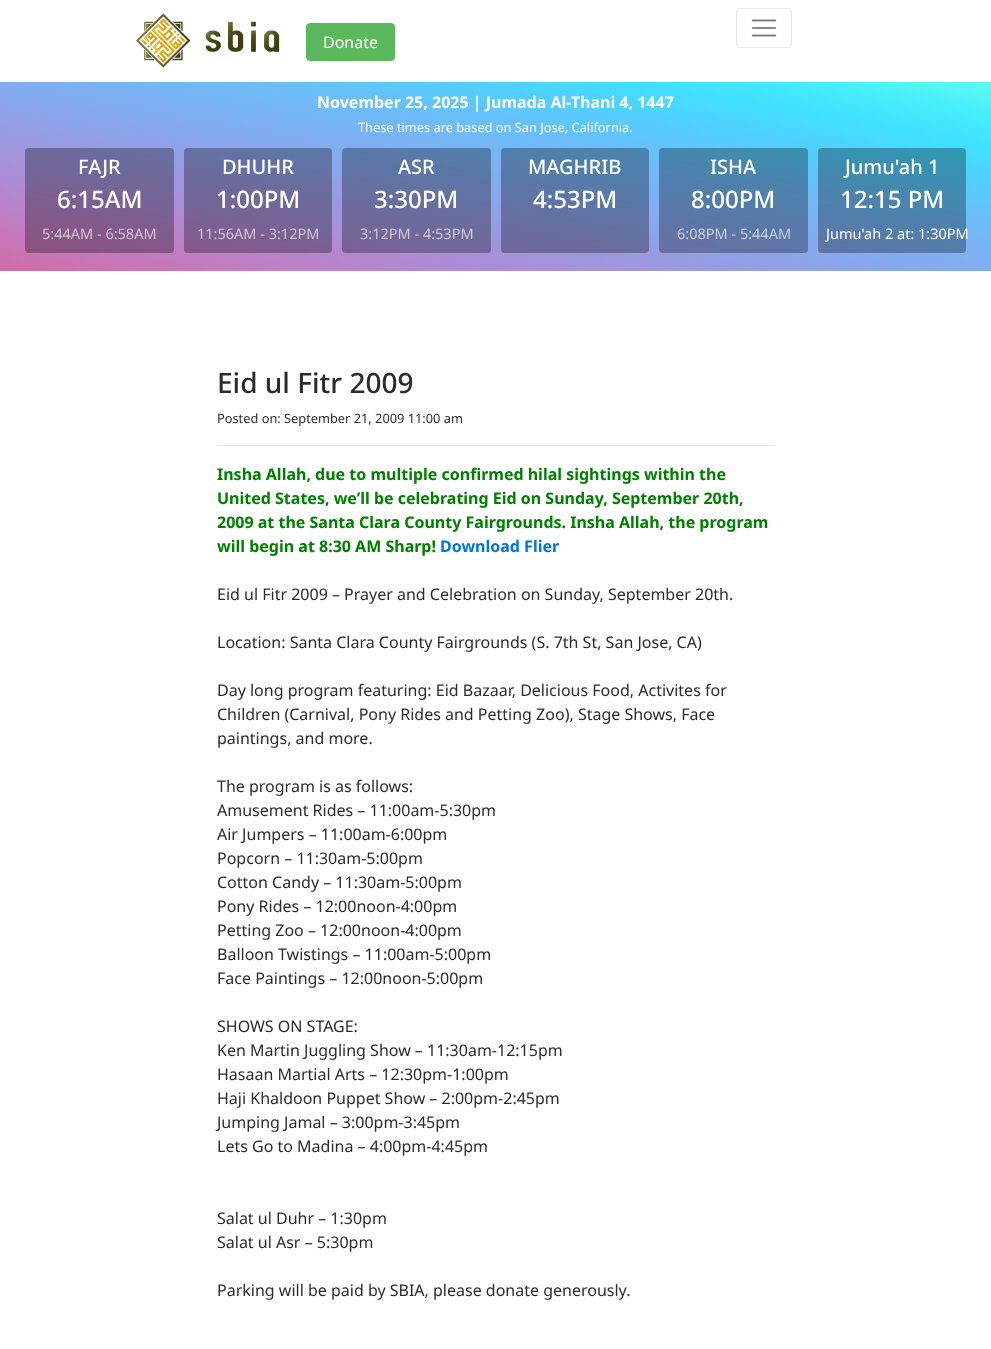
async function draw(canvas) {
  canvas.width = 991
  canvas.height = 1349
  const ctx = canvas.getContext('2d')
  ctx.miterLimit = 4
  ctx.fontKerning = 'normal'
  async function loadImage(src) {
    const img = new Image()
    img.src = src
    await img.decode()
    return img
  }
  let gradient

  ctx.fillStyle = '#fff'
  ctx.fillRect(0, 0, 991, 1349)
  ctx.drawImage(await loadImage('image0.png'), 136, 13, 144, 55)
  ctx.fillStyle = '#5cb85c'
  ctx.beginPath()
  ctx.roundRect(306.5, 23.5, 88, 37, 3.5)
  ctx.fill()
  ctx.strokeStyle = '#5cb85c'
  ctx.stroke()
  ctx.font = '16px Noto Sans'
  ctx.fillStyle = '#fff'
  ctx.fillText('Donate', 323, 48)
  ctx.beginPath()
  ctx.roundRect(736.5, 8.5, 55, 39, 3.5)
  ctx.strokeStyle = '#e6e6e6'
  ctx.stroke()
  ctx.drawImage(await loadImage('image1.png'), 751, 19, 26, 18)
  gradient = ctx.createLinearGradient(461, 359, 530, -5.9)
  gradient.addColorStop(0, '#d16ba5')
  gradient.addColorStop(0.09, '#c777b9')
  gradient.addColorStop(0.18, '#ba83ca')
  gradient.addColorStop(0.27, '#aa8fd8')
  gradient.addColorStop(0.36, '#9a9ae1')
  gradient.addColorStop(0.45, '#8aa7ec')
  gradient.addColorStop(0.55, '#79b3f4')
  gradient.addColorStop(0.64, '#69bff8')
  gradient.addColorStop(0.73, '#52cffe')
  gradient.addColorStop(0.82, '#41dfff')
  gradient.addColorStop(0.91, '#46eefa')
  gradient.addColorStop(1, '#5ffbf1')
  ctx.fillStyle = gradient
  ctx.fillRect(0, 82, 991, 189)
  ctx.font = 'bold 16px Noto Sans'
  ctx.fillStyle = '#fff'
  ctx.fillText('November 25, 2025 | Jumada Al-Thani 4, 1447', 317, 108)
  ctx.font = '12.8px Noto Sans'
  ctx.fillText('These times are based on San Jose, California.', 358, 132)
  ctx.fillStyle = '#0000004d'
  ctx.beginPath()
  ctx.roundRect(25, 148, 149, 105, 4)
  ctx.fill()
  ctx.font = '500 20px Noto Sans'
  ctx.fillStyle = '#fff'
  ctx.fillText('FAJR', 78, 174)
  ctx.font = '500 24px Noto Sans'
  ctx.fillText('6:15AM', 57, 208)
  ctx.font = '14.5px Noto Sans'
  ctx.fillStyle = '#d4c5d6'
  ctx.fillText('5:44AM - 6:58AM', 42, 239)
  ctx.fillStyle = '#0000004d'
  ctx.beginPath()
  ctx.roundRect(184, 148, 148, 105, 4)
  ctx.fill()
  ctx.font = '500 20px Noto Sans'
  ctx.fillStyle = '#fff'
  ctx.fillText('DHUHR', 222, 174)
  ctx.font = '500 24px Noto Sans'
  ctx.fillText('1:00PM', 216, 208)
  ctx.font = '14.5px Noto Sans'
  ctx.fillStyle = '#d4c5d6'
  ctx.fillText('11:56AM - 3:12PM', 197, 239)
  ctx.fillStyle = '#0000004d'
  ctx.beginPath()
  ctx.roundRect(342, 148, 149, 105, 4)
  ctx.fill()
  ctx.font = '500 20px Noto Sans'
  ctx.fillStyle = '#fff'
  ctx.fillText('ASR', 398, 174)
  ctx.font = '500 24px Noto Sans'
  ctx.fillText('3:30PM', 374, 208)
  ctx.font = '14.5px Noto Sans'
  ctx.fillStyle = '#cecadc'
  ctx.fillText('3:12PM - 4:53PM', 360, 239)
  ctx.fillStyle = '#0000004d'
  ctx.beginPath()
  ctx.roundRect(501, 148, 148, 105, 4)
  ctx.fill()
  ctx.font = '500 20px Noto Sans'
  ctx.fillStyle = '#fff'
  ctx.fillText('MAGHRIB', 528, 174)
  ctx.font = '500 24px Noto Sans'
  ctx.fillText('4:53PM', 533, 208)
  ctx.fillStyle = '#0000004d'
  ctx.beginPath()
  ctx.roundRect(659, 148, 149, 105, 4)
  ctx.fill()
  ctx.font = '500 20px Noto Sans'
  ctx.fillStyle = '#fff'
  ctx.fillText('ISHA', 710, 174)
  ctx.font = '500 24px Noto Sans'
  ctx.fillText('8:00PM', 691, 208)
  ctx.font = '14.5px Noto Sans'
  ctx.fillStyle = '#c7cfe0'
  ctx.fillText('6:08PM - 5:44AM', 677, 239)
  ctx.fillStyle = '#0000004d'
  ctx.beginPath()
  ctx.roundRect(818, 148, 148, 105, 4)
  ctx.fill()
  ctx.font = '500 20px Noto Sans'
  ctx.fillStyle = '#fff'
  ctx.fillText('Jumu\'ah 1', 845, 174)
  ctx.font = '500 24px Noto Sans'
  ctx.fillText('12:15 PM', 840, 208)
  ctx.font = '14.5px Noto Sans'
  ctx.fillText('Jumu\'ah 2 at: 1:30PM', 826, 239)
  ctx.font = '500 28px Noto Sans'
  ctx.fillStyle = '#292b2c'
  ctx.fillText('Eid ul Fitr 2009', 217, 393)
  ctx.font = '12.8px Noto Sans'
  ctx.fillText('Posted on: September 21, 2009 11:00 am', 217, 423)
  ctx.fillStyle = '#e6e6e6'
  ctx.fillRect(217, 445, 558, 1)
  ctx.font = 'bold 16px Noto Sans'
  ctx.fillStyle = '#008000'
  ctx.fillText('Insha Allah, due to multiple confirmed hilal sightings within the', 217, 480)
  ctx.fillText('United States, we’ll be celebrating Eid on Sunday, September 20th,', 217, 504)
  ctx.fillText('2009 at the Santa Clara County Fairgrounds. Insha Allah, the program', 217, 528)
  ctx.fillText('will begin at 8:30 AM Sharp!', 217, 552)
  ctx.fillStyle = '#0275d8'
  ctx.fillText('Download Flier', 440, 552)
  ctx.font = '16px Noto Sans'
  ctx.fillStyle = '#292b2c'
  ctx.fillText('Eid ul Fitr 2009 – Prayer and Celebration on Sunday, September 20th.', 217, 600)
  ctx.fillText('Location: Santa Clara County Fairgrounds (S. 7th St, San Jose, CA)', 217, 648)
  ctx.fillText('Day long program featuring: Eid Bazaar, Delicious Food, Activites for', 217, 696)
  ctx.fillText('Children (Carnival, Pony Rides and Petting Zoo), Stage Shows, Face', 217, 720)
  ctx.fillText('paintings, and more.', 217, 744)
  ctx.fillText('The program is as follows:', 217, 792)
  ctx.fillText('Amusement Rides – 11:00am-5:30pm', 217, 816)
  ctx.fillText('Air Jumpers – 11:00am-6:00pm', 217, 840)
  ctx.fillText('Popcorn – 11:30am-5:00pm', 217, 864)
  ctx.fillText('Cotton Candy – 11:30am-5:00pm', 217, 888)
  ctx.fillText('Pony Rides – 12:00noon-4:00pm', 217, 912)
  ctx.fillText('Petting Zoo – 12:00noon-4:00pm', 217, 936)
  ctx.fillText('Balloon Twistings – 11:00am-5:00pm', 217, 960)
  ctx.fillText('Face Paintings – 12:00noon-5:00pm', 217, 984)
  ctx.fillText('SHOWS ON STAGE:', 217, 1032)
  ctx.fillText('Ken Martin Juggling Show – 11:30am-12:15pm', 217, 1056)
  ctx.fillText('Hasaan Martial Arts – 12:30pm-1:00pm', 217, 1080)
  ctx.fillText('Haji Khaldoon Puppet Show – 2:00pm-2:45pm', 217, 1104)
  ctx.fillText('Jumping Jamal – 3:00pm-3:45pm', 217, 1128)
  ctx.fillText('Lets Go to Madina – 4:00pm-4:45pm', 217, 1152)
  ctx.fillText('Salat ul Duhr – 1:30pm', 217, 1224)
  ctx.fillText('Salat ul Asr – 5:30pm', 217, 1248)
  ctx.fillText('Parking will be paid by SBIA, please donate generously.', 217, 1296)
}

draw(document.querySelector('canvas'))
